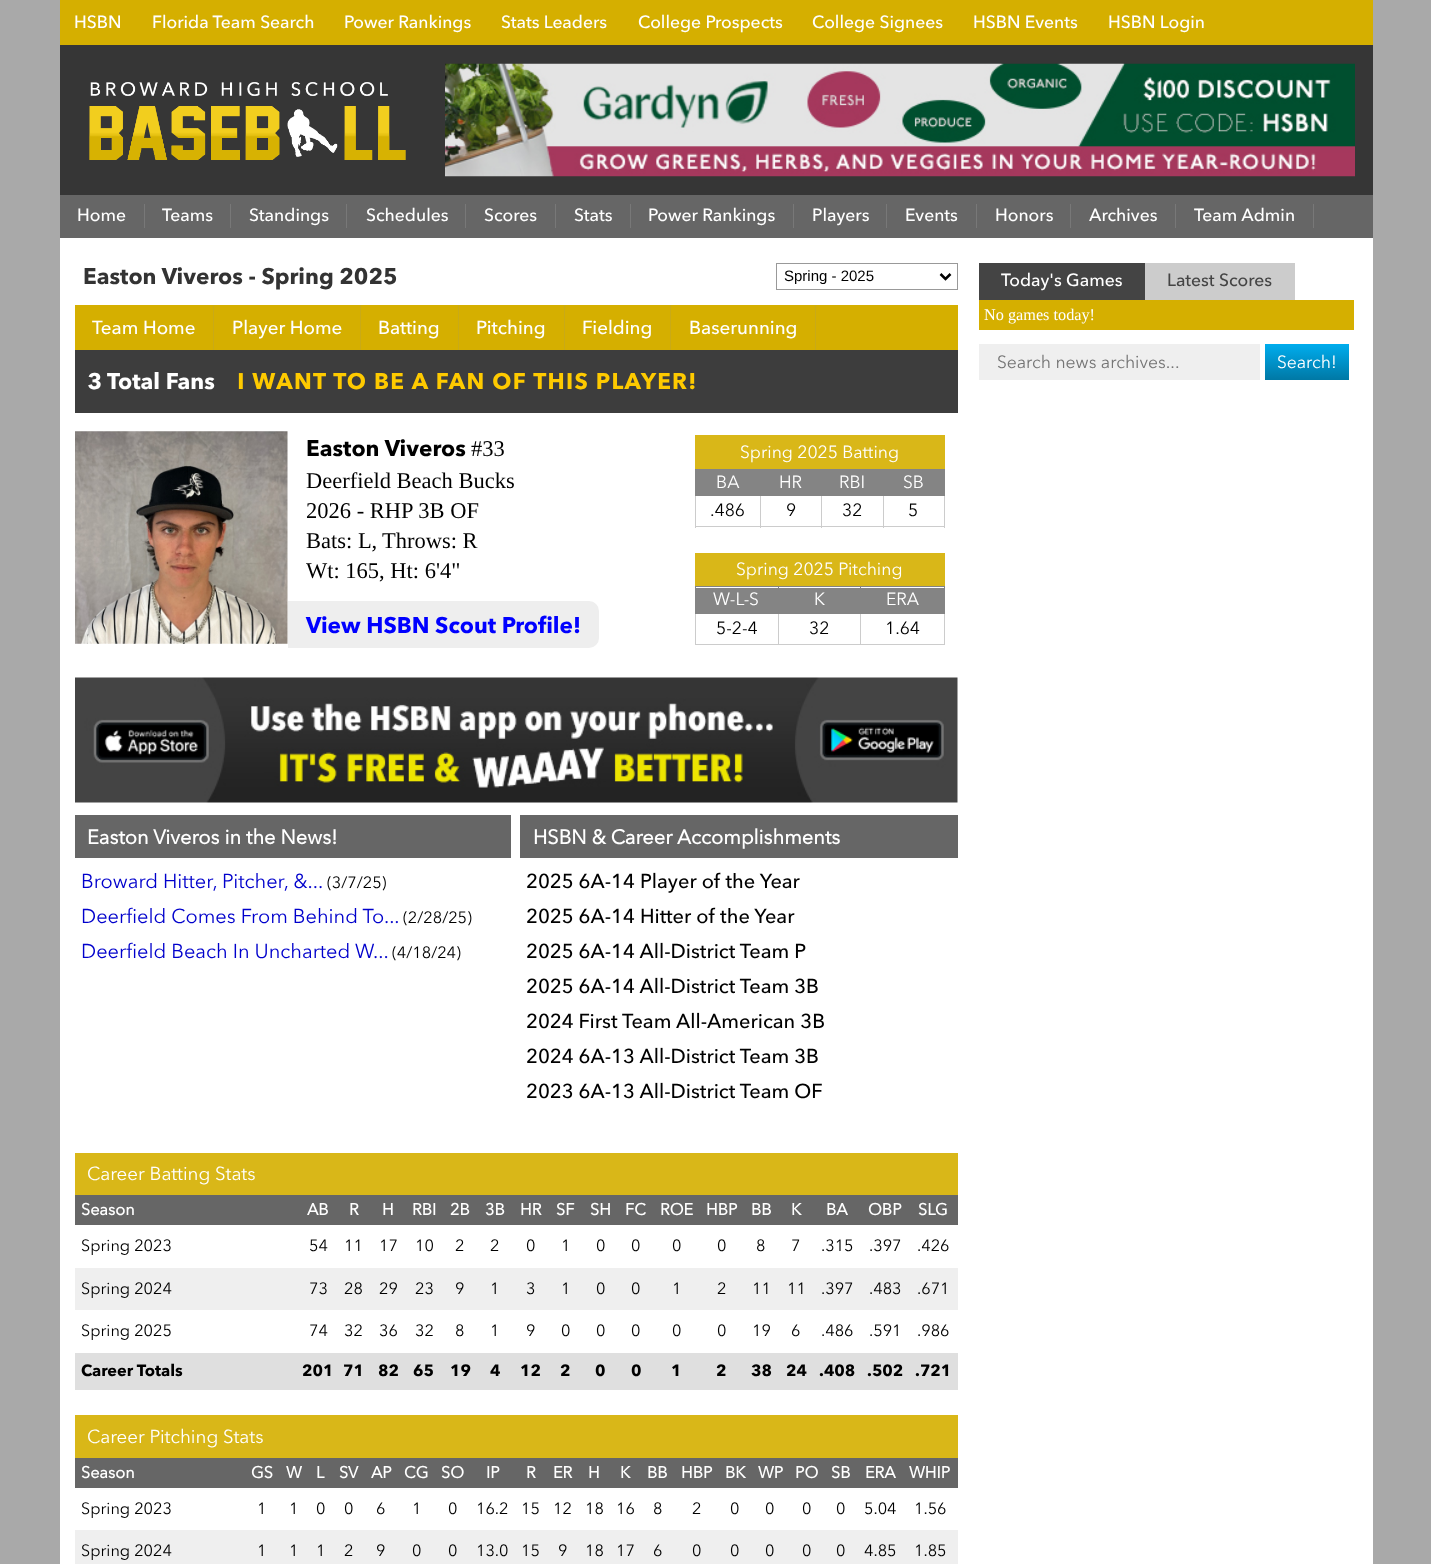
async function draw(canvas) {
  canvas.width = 1431
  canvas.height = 1564
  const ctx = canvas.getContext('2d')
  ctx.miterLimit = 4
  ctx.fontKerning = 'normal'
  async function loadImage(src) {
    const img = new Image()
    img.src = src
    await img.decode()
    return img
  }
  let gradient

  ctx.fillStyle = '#a9a9a9'
  ctx.fillRect(0, 0, 1431, 1564)
  ctx.fillStyle = '#d5af00'
  ctx.fillRect(60, 0, 1313, 45)
  ctx.font = '500 17.5px Avenir Next'
  ctx.fillStyle = '#fff'
  ctx.fillText('HSBN', 74, 28)
  ctx.fillText('Florida Team Search', 152, 28)
  ctx.fillText('Power Rankings', 344, 28)
  ctx.fillText('Stats Leaders', 501, 28)
  ctx.fillText('College Prospects', 638, 28)
  ctx.fillText('College Signees', 812, 28)
  ctx.fillText('HSBN Events', 973, 28)
  ctx.fillText('HSBN Login', 1108, 28)
  ctx.fillRect(60, 238, 4, 1326)
  ctx.fillStyle = '#363636'
  ctx.fillRect(60, 45, 1313, 150)
  ctx.drawImage(await loadImage('image0.png'), 89, 82, 317, 78)
  ctx.drawImage(await loadImage('image1.png'), 445, 63, 910, 114)
  ctx.fillStyle = '#666'
  ctx.fillRect(60, 195, 1313, 43)
  ctx.fillStyle = '#fff'
  ctx.fillText('Home', 77, 221)
  ctx.fillStyle = '#787878'
  ctx.fillRect(144, 204, 1, 24)
  ctx.fillStyle = '#fff'
  ctx.fillText('Teams', 162, 221)
  ctx.fillStyle = '#787878'
  ctx.fillRect(230, 204, 1, 24)
  ctx.fillStyle = '#fff'
  ctx.fillText('Standings', 249, 221)
  ctx.fillStyle = '#787878'
  ctx.fillRect(346, 204, 1, 24)
  ctx.fillStyle = '#fff'
  ctx.fillText('Schedules', 366, 221)
  ctx.fillStyle = '#787878'
  ctx.fillRect(465, 204, 1, 24)
  ctx.fillStyle = '#fff'
  ctx.fillText('Scores', 484, 221)
  ctx.fillStyle = '#787878'
  ctx.fillRect(555, 204, 1, 24)
  ctx.fillStyle = '#fff'
  ctx.fillText('Stats', 574, 221)
  ctx.fillStyle = '#787878'
  ctx.fillRect(630, 204, 1, 24)
  ctx.fillStyle = '#fff'
  ctx.fillText('Power Rankings', 648, 221)
  ctx.fillStyle = '#787878'
  ctx.fillRect(793, 204, 1, 24)
  ctx.fillStyle = '#fff'
  ctx.fillText('Players', 812, 221)
  ctx.fillStyle = '#787878'
  ctx.fillRect(886, 204, 1, 24)
  ctx.fillStyle = '#fff'
  ctx.fillText('Events', 905, 221)
  ctx.fillStyle = '#787878'
  ctx.fillRect(976, 204, 1, 24)
  ctx.fillStyle = '#fff'
  ctx.fillText('Honors', 995, 221)
  ctx.fillStyle = '#787878'
  ctx.fillRect(1070, 204, 1, 24)
  ctx.fillStyle = '#fff'
  ctx.fillText('Archives', 1089, 221)
  ctx.fillStyle = '#787878'
  ctx.fillRect(1175, 204, 1, 24)
  ctx.fillStyle = '#fff'
  ctx.fillText('Team Admin', 1194, 221)
  ctx.fillStyle = '#787878'
  ctx.fillRect(1313, 204, 1, 24)
  ctx.fillStyle = '#fff'
  ctx.fillRect(64, 238, 1309, 1326)
  ctx.font = 'bold 22.5px Avenir Next'
  ctx.fillStyle = '#333'
  ctx.fillText('Easton Viveros - Spring 2025', 83, 284)
  ctx.strokeStyle = '#999'
  ctx.strokeRect(776.5, 263.5, 181, 26)
  ctx.beginPath()
  ctx.moveTo(940.5, 274)
  ctx.lineTo(945.5, 279)
  ctx.lineTo(950.5, 274)
  ctx.strokeStyle = '#000'
  ctx.lineWidth = 2.5
  ctx.stroke()
  ctx.font = '15px Liberation Sans'
  ctx.fillStyle = '#000'
  ctx.fillText('Spring - 2025', 784, 281)
  ctx.fillStyle = '#d5af00'
  ctx.fillRect(75, 305, 883, 45)
  ctx.fillStyle = '#c9aa17'
  ctx.fillRect(213, 305, 1, 45)
  ctx.font = '500 18.75px Avenir Next'
  ctx.fillStyle = '#fff'
  ctx.fillText('Team Home', 92, 334)
  ctx.fillStyle = '#c9aa17'
  ctx.fillRect(360, 305, 1, 45)
  ctx.fillStyle = '#fff'
  ctx.fillText('Player Home', 232, 334)
  ctx.fillStyle = '#c9aa17'
  ctx.fillRect(458, 305, 1, 45)
  ctx.fillStyle = '#fff'
  ctx.fillText('Batting', 378, 334)
  ctx.fillStyle = '#c9aa17'
  ctx.fillRect(564, 305, 1, 45)
  ctx.fillStyle = '#fff'
  ctx.fillText('Pitching', 476, 334)
  ctx.fillStyle = '#c9aa17'
  ctx.fillRect(670, 305, 1, 45)
  ctx.fillStyle = '#fff'
  ctx.fillText('Fielding', 582, 334)
  ctx.fillStyle = '#c9aa17'
  ctx.fillRect(815, 305, 1, 45)
  ctx.fillStyle = '#fff'
  ctx.fillText('Baserunning', 689, 334)
  ctx.fillStyle = '#3d3d3d'
  ctx.fillRect(75, 350, 883, 63)
  ctx.drawImage(await loadImage('image2.png'), 88, 372, 607, 18)
  ctx.drawImage(await loadImage('image3.png'), 75, 431, 213, 213)
  ctx.font = 'bold 22.5px Avenir Next'
  ctx.fillStyle = '#000'
  ctx.fillText('Easton Viveros', 306, 456)
  ctx.font = '22.5px Liberation Serif'
  ctx.fillText('#33', 471, 456)
  ctx.fillText('Deerfield Beach Bucks', 306, 488)
  ctx.fillText('2026 - RHP 3B OF', 306, 518)
  ctx.fillText('Bats: L,', 306, 548)
  ctx.fillText('Throws: R', 382, 548)
  ctx.fillText('Wt: 165, Ht: 6\'4"', 306, 578)
  ctx.fillStyle = '#eee'
  ctx.beginPath()
  ctx.roundRect(288, 601, 311, 47, [0, 10, 10, 0])
  ctx.fill()
  ctx.font = 'bold 22.5px Avenir Next'
  ctx.fillStyle = '#00f'
  ctx.fillText('View HSBN Scout Profile!', 306, 633)
  ctx.fillStyle = '#d9b718'
  ctx.fillRect(695, 435, 250, 34)
  ctx.font = '17.5px Avenir Next'
  ctx.fillStyle = '#fff'
  ctx.fillText('Spring 2025 Batting', 740, 458)
  ctx.fillStyle = '#848484'
  ctx.fillRect(695, 469, 250, 1)
  ctx.fillRect(695, 470, 249, 25)
  ctx.fillStyle = '#fff'
  ctx.fillText('BA', 716, 488)
  ctx.fillText('HR', 779, 488)
  ctx.fillText('RBI', 839, 488)
  ctx.fillStyle = '#ccc'
  ctx.fillRect(944, 495, 1, 33)
  ctx.fillStyle = '#848484'
  ctx.fillRect(944, 469, 1, 27)
  ctx.fillStyle = '#ccc'
  ctx.fillRect(883, 526, 62, 1)
  ctx.fillRect(883, 495, 1, 33)
  ctx.fillRect(821, 526, 63, 1)
  ctx.fillRect(821, 495, 1, 33)
  ctx.fillRect(760, 526, 63, 1)
  ctx.fillRect(760, 495, 1, 33)
  ctx.fillRect(695, 526, 66, 1)
  ctx.fillRect(695, 495, 1, 33)
  ctx.fillStyle = '#848484'
  ctx.fillRect(695, 495, 250, 1)
  ctx.fillStyle = '#fff'
  ctx.fillText('SB', 903, 488)
  ctx.fillStyle = '#000'
  ctx.fillText('.486', 710, 516)
  ctx.fillText('9', 786, 516)
  ctx.fillText('32', 842, 516)
  ctx.fillText('5', 908, 516)
  ctx.fillStyle = '#d9b718'
  ctx.fillRect(695, 553, 250, 33)
  ctx.fillStyle = '#fff'
  ctx.fillText('Spring 2025 Pitching', 736, 575)
  ctx.fillStyle = '#848484'
  ctx.fillRect(695, 586, 250, 1)
  ctx.fillRect(695, 586, 1, 28)
  ctx.fillRect(696, 588, 82, 25)
  ctx.fillStyle = '#ccc'
  ctx.fillRect(944, 613, 1, 32)
  ctx.fillStyle = '#848484'
  ctx.fillRect(944, 586, 1, 28)
  ctx.fillStyle = '#ccc'
  ctx.fillRect(860, 644, 85, 1)
  ctx.fillRect(860, 613, 1, 32)
  ctx.fillStyle = '#848484'
  ctx.fillRect(860, 613, 85, 1)
  ctx.fillRect(860, 586, 1, 28)
  ctx.fillStyle = '#ccc'
  ctx.fillRect(778, 644, 83, 1)
  ctx.fillRect(778, 613, 1, 32)
  ctx.fillStyle = '#848484'
  ctx.fillRect(778, 613, 83, 1)
  ctx.fillRect(778, 586, 1, 28)
  ctx.fillStyle = '#ccc'
  ctx.fillRect(695, 644, 84, 1)
  ctx.fillRect(695, 613, 1, 32)
  ctx.fillStyle = '#848484'
  ctx.fillRect(695, 613, 84, 1)
  ctx.fillStyle = '#fff'
  ctx.fillText('W-L-S', 713, 605)
  ctx.fillStyle = '#848484'
  ctx.fillRect(779, 588, 81, 25)
  ctx.fillStyle = '#fff'
  ctx.fillText('K', 814, 605)
  ctx.fillStyle = '#848484'
  ctx.fillRect(861, 588, 83, 25)
  ctx.fillStyle = '#fff'
  ctx.fillText('ERA', 886, 605)
  ctx.fillStyle = '#000'
  ctx.fillText('5-2-4', 716, 634)
  ctx.fillText('32', 809, 634)
  ctx.fillText('1.64', 885, 634)
  ctx.drawImage(await loadImage('image4.png'), 75, 677, 883, 126)
  ctx.fillStyle = '#666'
  ctx.fillRect(75, 815, 436, 43)
  ctx.font = 'bold 20px "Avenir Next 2"'
  ctx.fillStyle = '#fff'
  ctx.fillText('Easton Viveros in the News!', 87, 844)
  ctx.font = '20px Avenir Next'
  ctx.fillStyle = '#00c'
  ctx.fillText('Broward Hitter, Pitcher, &...', 81, 888)
  ctx.font = '16.25px Avenir Next'
  ctx.fillStyle = '#000'
  ctx.fillText('(3/7/25)', 327, 888)
  ctx.font = '20px Avenir Next'
  ctx.fillStyle = '#00c'
  ctx.fillText('Deerfield Comes From Behind To...', 81, 923)
  ctx.font = '16.25px Avenir Next'
  ctx.fillStyle = '#000'
  ctx.fillText('(2/28/25)', 403, 923)
  ctx.font = '20px Avenir Next'
  ctx.fillStyle = '#00c'
  ctx.fillText('Deerfield Beach In Uncharted W...', 81, 958)
  ctx.font = '16.25px Avenir Next'
  ctx.fillStyle = '#000'
  ctx.fillText('(4/18/24)', 392, 958)
  ctx.fillStyle = '#666'
  ctx.fillRect(520, 815, 438, 43)
  ctx.font = 'bold 20px "Avenir Next 2"'
  ctx.fillStyle = '#fff'
  ctx.fillText('HSBN & Career Accomplishments', 533, 844)
  ctx.font = '500 20px Avenir Next'
  ctx.fillStyle = '#000'
  ctx.fillText('2025 6A-14 Player of the Year', 526, 888)
  ctx.fillText('2025 6A-14 Hitter of the Year', 526, 923)
  ctx.fillText('2025 6A-14 All-District Team P', 526, 958)
  ctx.fillText('2025 6A-14 All-District Team 3B', 526, 993)
  ctx.fillText('2024 First Team All-American 3B', 526, 1028)
  ctx.fillText('2024 6A-13 All-District Team 3B', 526, 1063)
  ctx.fillText('2023 6A-13 All-District Team OF', 526, 1098)
  ctx.fillStyle = '#d9b718'
  ctx.fillRect(75, 1153, 883, 42)
  ctx.font = '18.75px Avenir Next'
  ctx.fillStyle = '#fff'
  ctx.fillText('Career Batting Stats', 87, 1180)
  ctx.fillStyle = '#666'
  ctx.fillRect(75, 1195, 883, 30)
  ctx.font = 'bold 16.25px "Avenir Next 2"'
  ctx.fillStyle = '#fff'
  ctx.fillText('Season', 81, 1215)
  ctx.fillText('AB', 307, 1215)
  ctx.fillText('R', 349, 1215)
  ctx.fillText('H', 382, 1215)
  ctx.fillText('RBI', 412, 1215)
  ctx.fillText('2B', 450, 1215)
  ctx.fillText('3B', 485, 1215)
  ctx.fillText('HR', 520, 1215)
  ctx.fillText('SF', 556, 1215)
  ctx.fillText('SH', 590, 1215)
  ctx.fillText('FC', 625, 1215)
  ctx.fillText('ROE', 660, 1215)
  ctx.fillText('HBP', 706, 1215)
  ctx.fillText('BB', 751, 1215)
  ctx.fillText('K', 791, 1215)
  ctx.fillText('BA', 826, 1215)
  ctx.fillText('OBP', 868, 1215)
  ctx.fillText('SLG', 918, 1215)
  ctx.font = '16.25px Avenir Next'
  ctx.fillStyle = '#000'
  ctx.fillText('Spring 2023', 81, 1251)
  ctx.fillText('54', 309, 1251)
  ctx.fillText('11', 344, 1251)
  ctx.fillText('17', 379, 1251)
  ctx.fillText('10', 415, 1251)
  ctx.fillText('2', 455, 1251)
  ctx.fillText('2', 490, 1251)
  ctx.fillText('0', 526, 1251)
  ctx.fillText('1', 561, 1251)
  ctx.fillText('0', 596, 1251)
  ctx.fillText('0', 631, 1251)
  ctx.fillText('0', 672, 1251)
  ctx.fillText('0', 717, 1251)
  ctx.fillText('8', 756, 1251)
  ctx.fillText('7', 791, 1251)
  ctx.fillText('.315', 821, 1251)
  ctx.fillText('.397', 869, 1251)
  ctx.fillText('.426', 917, 1251)
  ctx.fillStyle = '#efefef'
  ctx.fillRect(75, 1268, 883, 42)
  ctx.fillStyle = '#000'
  ctx.fillText('Spring 2024', 81, 1294)
  ctx.fillText('73', 309, 1294)
  ctx.fillText('28', 344, 1294)
  ctx.fillText('29', 379, 1294)
  ctx.fillText('23', 415, 1294)
  ctx.fillText('9', 455, 1294)
  ctx.fillText('1', 490, 1294)
  ctx.fillText('3', 526, 1294)
  ctx.fillText('1', 561, 1294)
  ctx.fillText('0', 596, 1294)
  ctx.fillText('0', 631, 1294)
  ctx.fillText('1', 672, 1294)
  ctx.fillText('2', 717, 1294)
  ctx.fillText('11', 752, 1294)
  ctx.fillText('11', 787, 1294)
  ctx.fillText('.397', 821, 1294)
  ctx.fillText('.483', 869, 1294)
  ctx.fillText('.671', 917, 1294)
  ctx.fillText('Spring 2025', 81, 1336)
  ctx.fillText('74', 309, 1336)
  ctx.fillText('32', 344, 1336)
  ctx.fillText('36', 379, 1336)
  ctx.fillText('32', 415, 1336)
  ctx.fillText('8', 455, 1336)
  ctx.fillText('1', 490, 1336)
  ctx.fillText('9', 526, 1336)
  ctx.fillText('0', 561, 1336)
  ctx.fillText('0', 596, 1336)
  ctx.fillText('0', 631, 1336)
  ctx.fillText('0', 672, 1336)
  ctx.fillText('0', 717, 1336)
  ctx.fillText('19', 752, 1336)
  ctx.fillText('6', 791, 1336)
  ctx.fillText('.486', 821, 1336)
  ctx.fillText('.591', 869, 1336)
  ctx.fillText('.986', 917, 1336)
  ctx.fillStyle = '#dfdfdf'
  ctx.fillRect(75, 1353, 883, 37)
  ctx.font = 'bold 16.25px Avenir Next'
  ctx.fillStyle = '#000'
  ctx.fillText('Career Totals', 81, 1376)
  ctx.fillText('201', 302, 1376)
  ctx.fillText('71', 343, 1376)
  ctx.fillText('82', 378, 1376)
  ctx.fillText('65', 413, 1376)
  ctx.fillText('19', 450, 1376)
  ctx.fillText('4', 490, 1376)
  ctx.fillText('12', 520, 1376)
  ctx.fillText('2', 560, 1376)
  ctx.fillText('0', 595, 1376)
  ctx.fillText('0', 631, 1376)
  ctx.fillText('1', 671, 1376)
  ctx.fillText('2', 716, 1376)
  ctx.fillText('38', 751, 1376)
  ctx.fillText('24', 786, 1376)
  ctx.fillText('.408', 819, 1376)
  ctx.fillText('.502', 867, 1376)
  ctx.fillText('.721', 915, 1376)
  ctx.fillStyle = '#d9b718'
  ctx.fillRect(75, 1415, 883, 43)
  ctx.font = '18.75px Avenir Next'
  ctx.fillStyle = '#fff'
  ctx.fillText('Career Pitching Stats', 87, 1443)
  ctx.fillStyle = '#666'
  ctx.fillRect(75, 1458, 883, 30)
  ctx.font = 'bold 16.25px "Avenir Next 2"'
  ctx.fillStyle = '#fff'
  ctx.fillText('Season', 81, 1478)
  ctx.fillText('GS', 251, 1478)
  ctx.fillText('W', 286, 1478)
  ctx.fillText('L', 316, 1478)
  ctx.fillText('SV', 339, 1478)
  ctx.fillText('AP', 371, 1478)
  ctx.fillText('CG', 404, 1478)
  ctx.fillText('SO', 441, 1478)
  ctx.fillText('IP', 486, 1478)
  ctx.fillText('R', 526, 1478)
  ctx.fillText('ER', 553, 1478)
  ctx.fillText('H', 588, 1478)
  ctx.fillText('K', 620, 1478)
  ctx.fillText('BB', 647, 1478)
  ctx.fillText('HBP', 681, 1478)
  ctx.fillText('BK', 725, 1478)
  ctx.fillText('WP', 758, 1478)
  ctx.fillText('PO', 795, 1478)
  ctx.fillText('SB', 831, 1478)
  ctx.fillText('ERA', 865, 1478)
  ctx.fillText('WHIP', 909, 1478)
  ctx.font = '16.25px Avenir Next'
  ctx.fillStyle = '#000'
  ctx.fillText('Spring 2023', 81, 1514)
  ctx.fillText('1', 257, 1514)
  ctx.fillText('1', 289, 1514)
  ctx.fillText('0', 316, 1514)
  ctx.fillText('0', 344, 1514)
  ctx.fillText('6', 376, 1514)
  ctx.fillText('1', 412, 1514)
  ctx.fillText('0', 448, 1514)
  ctx.fillText('16.2', 476, 1514)
  ctx.fillText('15', 521, 1514)
  ctx.fillText('12', 553, 1514)
  ctx.fillText('18', 585, 1514)
  ctx.fillText('16', 616, 1514)
  ctx.fillText('8', 653, 1514)
  ctx.fillText('2', 692, 1514)
  ctx.fillText('0', 730, 1514)
  ctx.fillText('0', 765, 1514)
  ctx.fillText('0', 802, 1514)
  ctx.fillText('0', 836, 1514)
  ctx.fillText('5.04', 864, 1514)
  ctx.fillText('1.56', 914, 1514)
  ctx.fillStyle = '#efefef'
  ctx.fillRect(75, 1530, 883, 34)
  ctx.fillStyle = '#000'
  ctx.fillText('Spring 2024', 81, 1556)
  ctx.fillText('1', 257, 1556)
  ctx.fillText('1', 289, 1556)
  ctx.fillText('1', 316, 1556)
  ctx.fillText('2', 344, 1556)
  ctx.fillText('9', 376, 1556)
  ctx.fillText('0', 412, 1556)
  ctx.fillText('0', 448, 1556)
  ctx.fillText('13.0', 476, 1556)
  ctx.fillText('15', 521, 1556)
  ctx.fillText('9', 558, 1556)
  ctx.fillText('18', 585, 1556)
  ctx.fillText('17', 616, 1556)
  ctx.fillText('6', 653, 1556)
  ctx.fillText('0', 692, 1556)
  ctx.fillText('0', 730, 1556)
  ctx.fillText('0', 765, 1556)
  ctx.fillText('0', 802, 1556)
  ctx.fillText('0', 836, 1556)
  ctx.fillText('4.85', 864, 1556)
  ctx.fillText('1.85', 914, 1556)
  ctx.fillStyle = '#444'
  ctx.fillRect(979, 263, 166, 37)
  ctx.font = '500 17.5px Avenir Next'
  ctx.fillStyle = '#fff'
  ctx.fillText('Today\'s Games', 1001, 286)
  ctx.fillStyle = '#ccc'
  ctx.fillRect(1145, 263, 150, 37)
  ctx.fillStyle = '#444'
  ctx.fillText('Latest Scores', 1167, 286)
  ctx.fillStyle = '#d5af00'
  ctx.fillRect(979, 300, 375, 30)
  ctx.font = '16.25px Liberation Serif'
  ctx.fillStyle = '#fff'
  ctx.fillText('No games today!', 984, 320)
  ctx.fillStyle = '#efefef'
  ctx.fillRect(979, 344, 281, 36)
  ctx.font = '17.5px Avenir Next'
  ctx.fillStyle = '#757575'
  ctx.fillText('Search news archives...', 997, 368)
  gradient = ctx.createLinearGradient(1265, 344, 1265, 380)
  gradient.addColorStop(0, '#00adee')
  gradient.addColorStop(1, '#0078a5')
  ctx.fillStyle = gradient
  ctx.fillRect(1265, 344, 84, 36)
  ctx.fillStyle = '#fff'
  ctx.fillText('Search!', 1277, 368)
}

draw(document.querySelector('canvas'))
